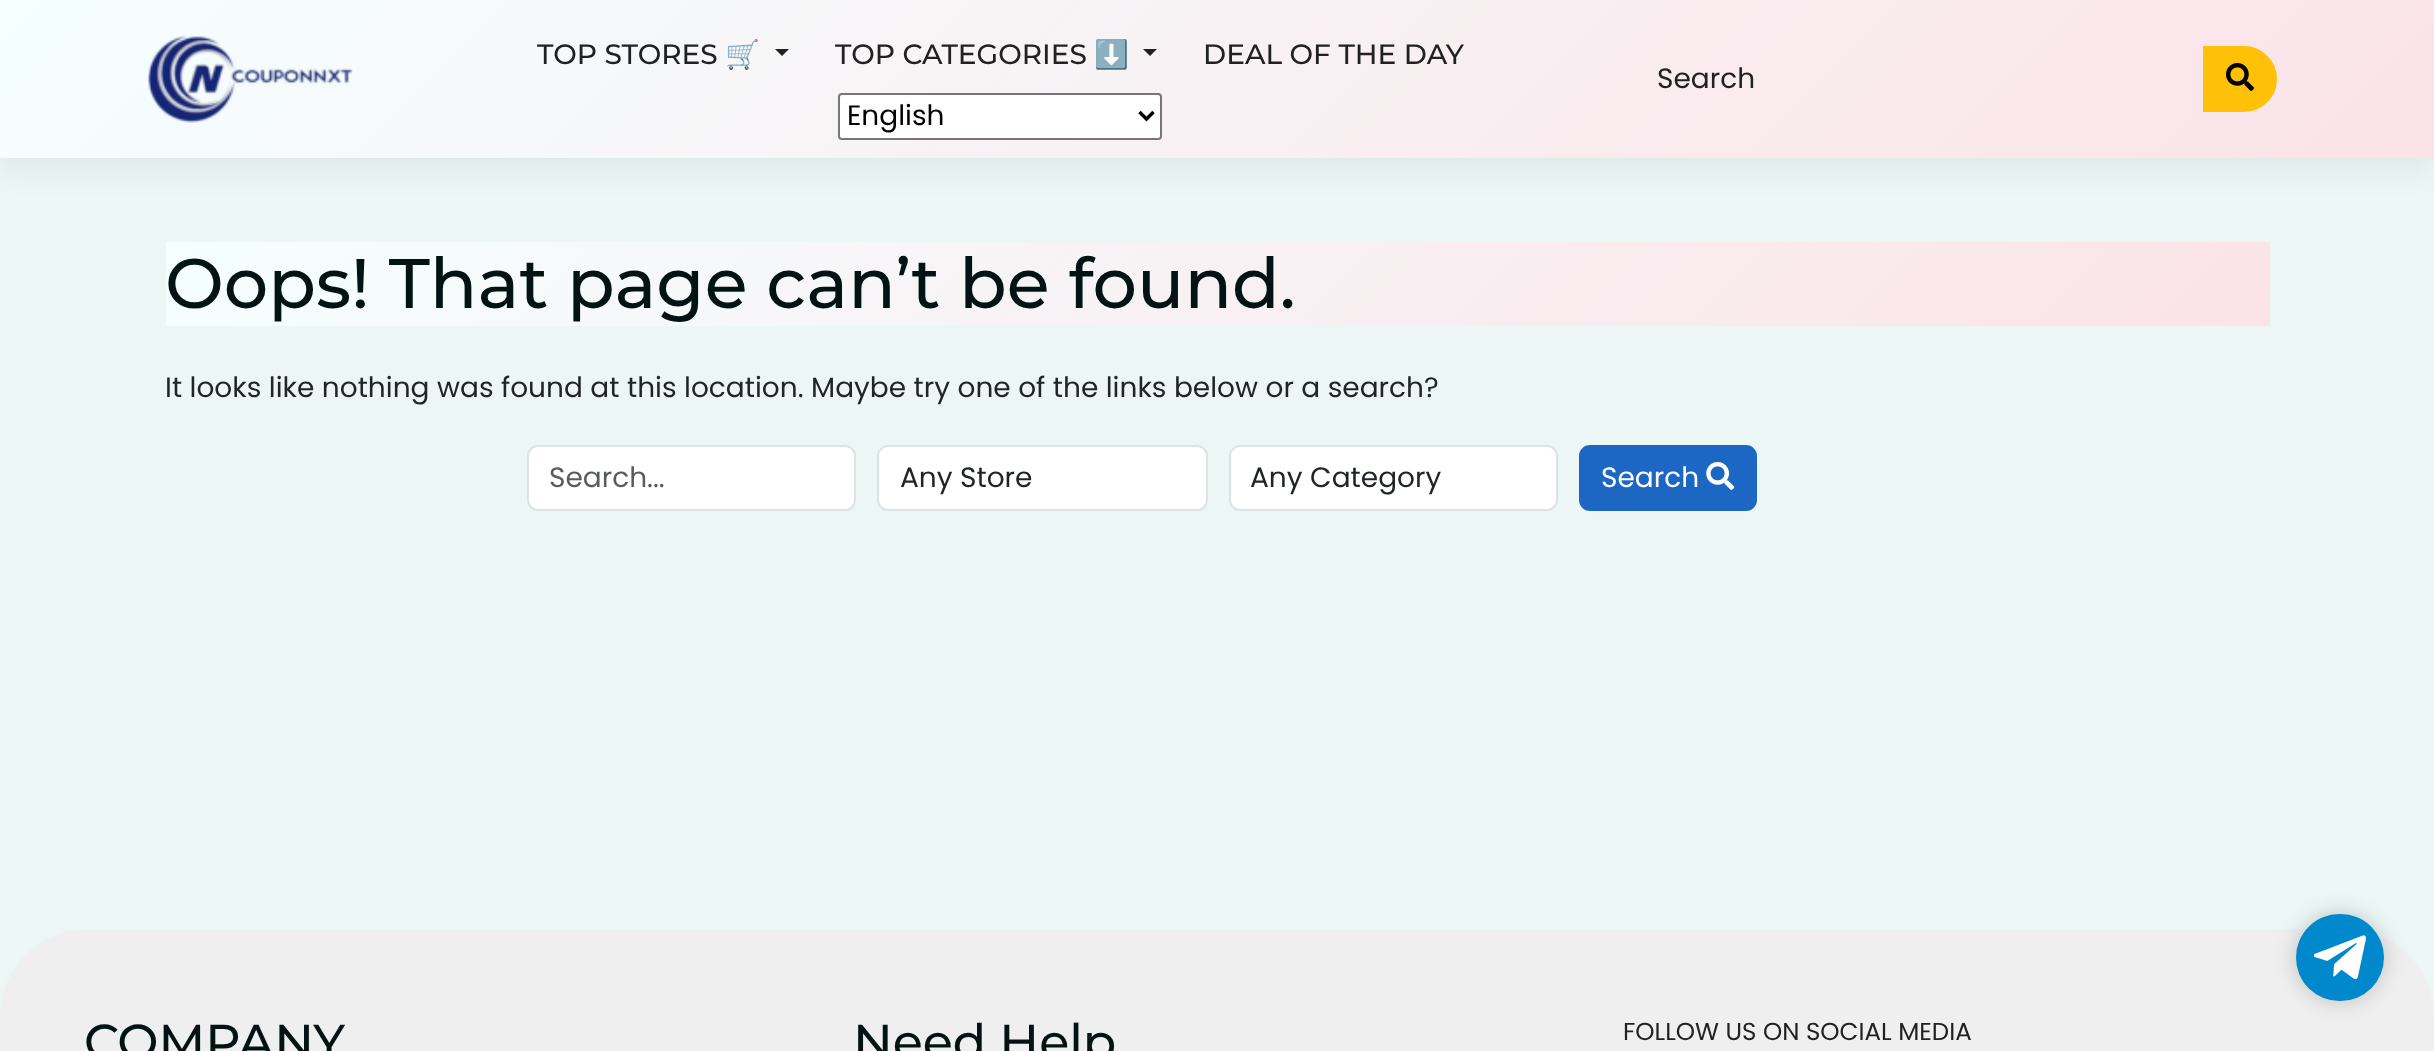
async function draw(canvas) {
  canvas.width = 2434
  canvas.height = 1051
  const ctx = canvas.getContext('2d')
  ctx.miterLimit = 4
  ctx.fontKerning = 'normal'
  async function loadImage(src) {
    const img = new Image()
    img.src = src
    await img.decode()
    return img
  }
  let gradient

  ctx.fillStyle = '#ebf6f5'
  ctx.fillRect(0, 0, 2434, 1051)
  ctx.fillStyle = '#0000000d'
  ctx.filter = 'blur(14px)'
  ctx.beginPath()
  ctx.rect(0, 14, 2434, 158)
  ctx.fill()
  ctx.filter = 'none'
  gradient = ctx.createLinearGradient(569, -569, 1865, 727)
  gradient.addColorStop(0, '#f5ffff')
  gradient.addColorStop(1, '#fbe3e8')
  ctx.fillStyle = gradient
  ctx.fillRect(0, 0, 2434, 158)
  ctx.drawImage(await loadImage('image0.png'), 147, 35, 206, 88)
  ctx.font = '500 28px Montserrat'
  ctx.fillStyle = '#212121'
  ctx.fillText('TOP STORES', 537, 64)
  ctx.font = '28px Noto Color Emoji'
  ctx.fillText('🛒', 725, 64)
  ctx.beginPath()
  ctx.moveTo(775, 49)
  ctx.lineTo(789, 49)
  ctx.lineTo(782, 56)
  ctx.closePath()
  ctx.fill()
  ctx.font = '500 28px Montserrat'
  ctx.fillText('TOP CATEGORIES', 835, 64)
  ctx.font = '28px Noto Color Emoji'
  ctx.fillText('⬇️', 1094, 64)
  ctx.beginPath()
  ctx.moveTo(1143, 49)
  ctx.lineTo(1157, 49)
  ctx.lineTo(1150, 56)
  ctx.closePath()
  ctx.fill()
  ctx.font = '500 28px Montserrat'
  ctx.fillText('DEAL OF THE DAY', 1203, 64)
  ctx.fillStyle = '#fff'
  ctx.beginPath()
  ctx.roundRect(839, 94, 322, 45, 3)
  ctx.fill()
  ctx.strokeStyle = '#767676'
  ctx.lineWidth = 2
  ctx.stroke()
  ctx.beginPath()
  ctx.moveTo(1139.5, 112)
  ctx.lineTo(1146.5, 119)
  ctx.lineTo(1153.5, 112)
  ctx.strokeStyle = '#000'
  ctx.lineWidth = 3.5
  ctx.stroke()
  ctx.font = '28px Poppins'
  ctx.fillStyle = '#000'
  ctx.fillText('English', 847, 125)
  ctx.fillStyle = '#212121'
  ctx.fillText('Search', 1657, 88)
  ctx.fillStyle = '#ffc107'
  ctx.beginPath()
  ctx.roundRect(2204, 47, 72, 64, [0, 32, 32, 0])
  ctx.fill()
  ctx.strokeStyle = '#ffc107'
  ctx.lineWidth = 2
  ctx.stroke()
  ctx.drawImage(await loadImage('image1.png'), 2226, 63, 28, 28)
  gradient = ctx.createLinearGradient(671, -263, 1765, 830)
  gradient.addColorStop(0, '#f5ffff')
  gradient.addColorStop(1, '#fbe3e8')
  ctx.fillStyle = gradient
  ctx.fillRect(166, 242, 2104, 84)
  ctx.font = '500 70px Montserrat'
  ctx.fillStyle = '#011413'
  ctx.fillText('Oops! That page can’t be found.', 165, 308)
  ctx.font = '28px Poppins'
  ctx.fillStyle = '#212529'
  ctx.fillText('It looks like nothing was found at this location. Maybe try one of the links below or a search?', 165, 397)
  ctx.fillStyle = '#fff'
  ctx.beginPath()
  ctx.roundRect(528, 446, 327, 64, 10)
  ctx.fill()
  ctx.strokeStyle = '#dee2e6'
  ctx.stroke()
  ctx.fillStyle = '#595c5f'
  ctx.fillText('Search...', 549, 487)
  ctx.fillStyle = '#fff'
  ctx.beginPath()
  ctx.roundRect(878, 446, 329, 64, 10)
  ctx.fill()
  ctx.stroke()
  ctx.fillStyle = '#212529'
  ctx.fillText('Any Store', 900, 487)
  ctx.fillStyle = '#fff'
  ctx.beginPath()
  ctx.roundRect(1230, 446, 327, 64, 10)
  ctx.fill()
  ctx.stroke()
  ctx.fillStyle = '#212529'
  ctx.fillText('Any Category', 1250, 487)
  ctx.fillStyle = '#1d67c4'
  ctx.beginPath()
  ctx.roundRect(1580, 446, 176, 64, 10)
  ctx.fill()
  ctx.strokeStyle = '#1d67c4'
  ctx.stroke()
  ctx.fillStyle = '#fff'
  ctx.fillText('Search', 1601, 487)
  ctx.drawImage(await loadImage('image2.png'), 1706, 462, 29, 28)
  ctx.fillStyle = '#efefef'
  ctx.beginPath()
  ctx.moveTo(88, 929)
  ctx.lineTo(2346, 929)
  ctx.bezierCurveTo(2394.5, 929, 2434, 968.5, 2434, 1017)
  ctx.lineTo(2434, 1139)
  ctx.lineTo(0, 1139)
  ctx.lineTo(0, 1017)
  ctx.bezierCurveTo(0, 968.5, 39.5, 929, 88, 929)
  ctx.closePath()
  ctx.fill()
  ctx.font = '500 49px Montserrat'
  ctx.fillStyle = '#011413'
  ctx.fillText('COMPANY', 84, 1059)
  ctx.fillText('Need Help', 853, 1059)
  ctx.font = '24.5px Poppins'
  ctx.fillStyle = '#212121'
  ctx.fillText('FOLLOW US ON SOCIAL MEDIA', 1623, 1040)
  ctx.fillStyle = '#00000033'
  ctx.filter = 'blur(10.5px)'
  ctx.beginPath()
  ctx.roundRect(2296, 914, 88, 87, 43.5)
  ctx.fill()
  ctx.filter = 'none'
  ctx.fillStyle = '#08c'
  ctx.beginPath()
  ctx.roundRect(2296, 914, 88, 87, 43.5)
  ctx.fill()
  ctx.drawImage(await loadImage('image3.png'), 2314, 935, 52, 45)
}

draw(document.querySelector('canvas'))
